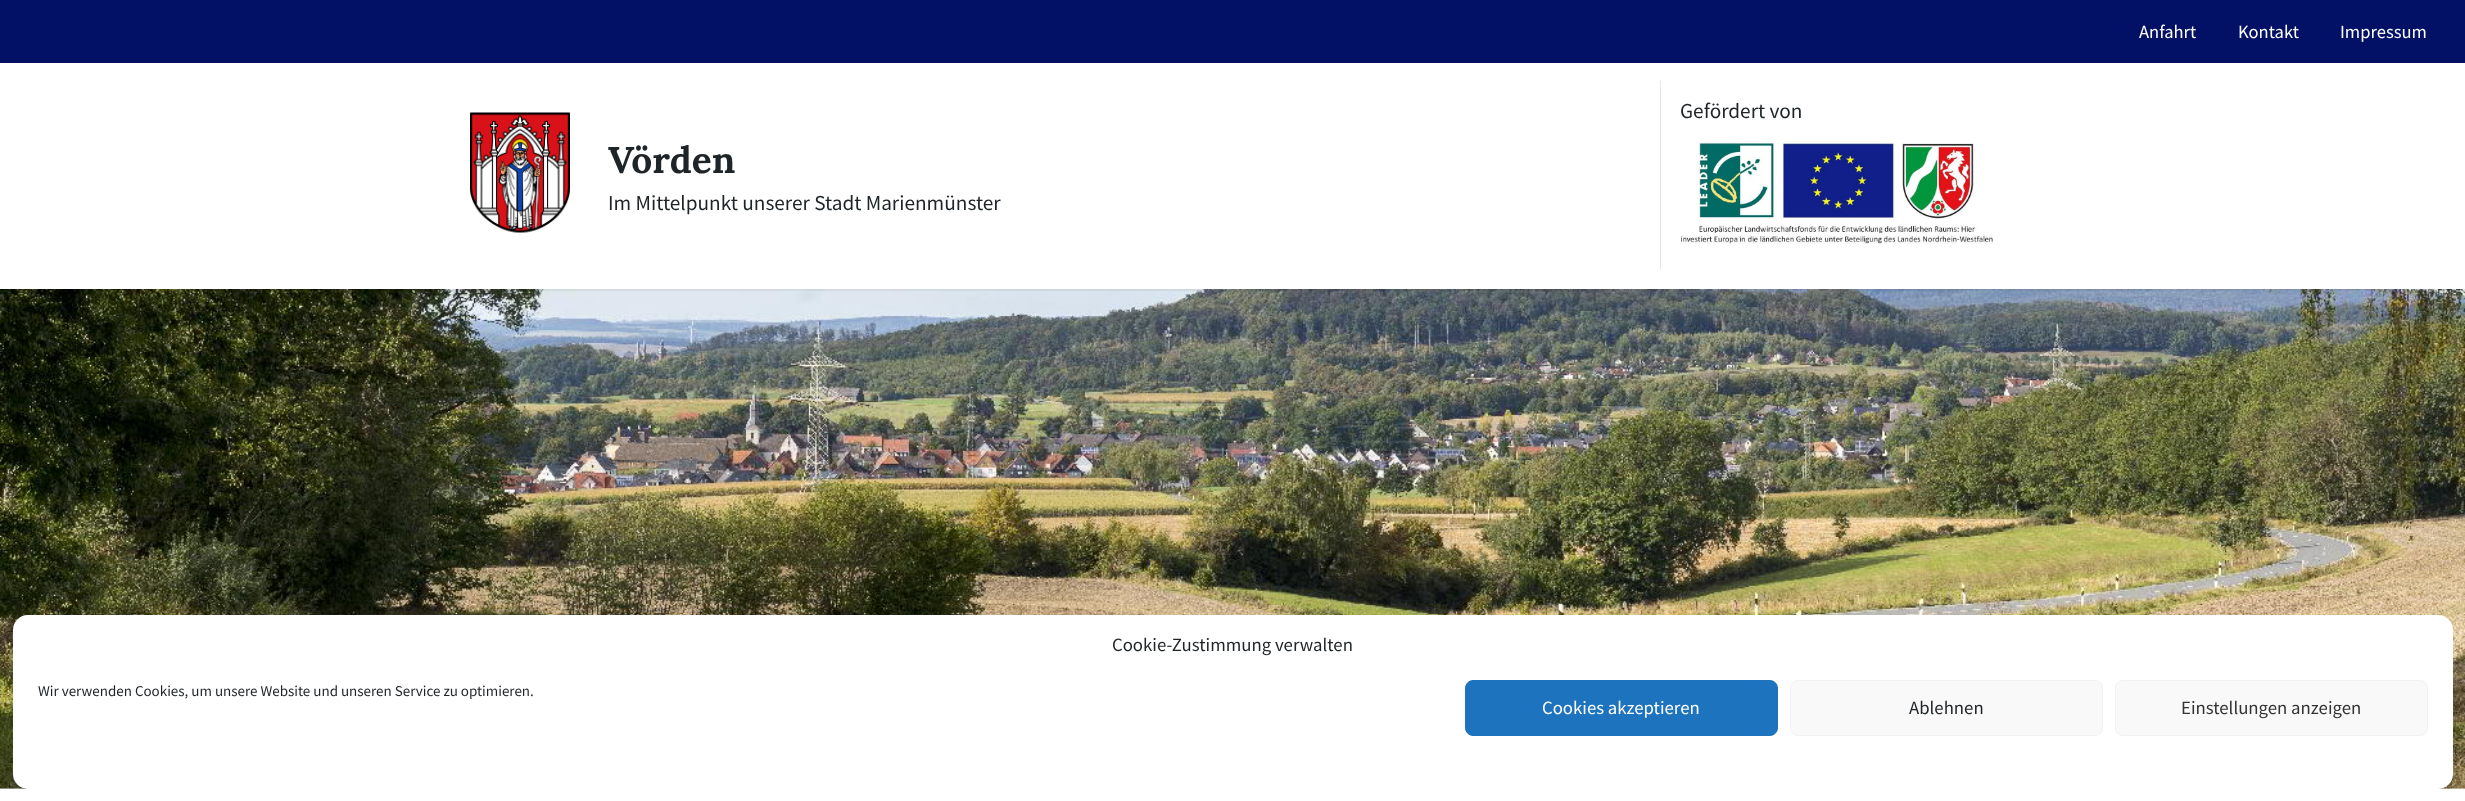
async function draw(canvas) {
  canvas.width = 2465
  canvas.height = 801
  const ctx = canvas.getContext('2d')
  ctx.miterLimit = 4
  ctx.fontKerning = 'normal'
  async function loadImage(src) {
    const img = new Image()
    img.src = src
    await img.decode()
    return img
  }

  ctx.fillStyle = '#fff'
  ctx.fillRect(0, 0, 2465, 801)
  ctx.fillStyle = '#f8f8f8'
  ctx.fillRect(0, 788, 2465, 1)
  ctx.fillStyle = '#021166'
  ctx.fillRect(0, 0, 2465, 63)
  ctx.font = '18.5px Source Sans Pro'
  ctx.fillStyle = '#fff'
  ctx.fillText('Anfahrt', 2139, 38)
  ctx.fillText('Kontakt', 2238, 38)
  ctx.fillText('Impressum', 2340, 38)
  ctx.drawImage(await loadImage('image2.png'), 0, 289, 2465, 500)
  ctx.strokeStyle = '#0000000d'
  ctx.lineWidth = 3
  ctx.strokeRect(-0.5, 61.5, 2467, 228)
  ctx.fillRect(0, 63, 2465, 226)
  ctx.drawImage(await loadImage('image0.png'), 470, 112, 100, 121)
  ctx.font = 'bold 37px Lora'
  ctx.fillStyle = '#1e2427'
  ctx.fillText('Vörden', 608, 173)
  ctx.font = '21.25px Source Sans Pro'
  ctx.fillText('Im Mittelpunkt unserer Stadt Marienmünster', 608, 210)
  ctx.fillStyle = '#e1e7ec'
  ctx.fillRect(1660, 81, 1, 189)
  ctx.fillStyle = '#1e2427'
  ctx.fillText('Gefördert von', 1680, 118)
  ctx.drawImage(await loadImage('image1.png'), 1680, 140, 314, 104)
  ctx.fillStyle = '#fff'
  ctx.beginPath()
  ctx.roundRect(13, 615, 2440, 174, 15)
  ctx.fill()
  ctx.font = '18.75px Source Sans Pro'
  ctx.fillStyle = '#1e2427'
  ctx.fillText('Cookie-Zustimmung verwalten', 1112, 651)
  ctx.font = '15px Source Sans Pro'
  ctx.fillText('Wir verwenden Cookies, um unsere Website und unseren Service zu optimieren.', 38, 696)
  ctx.fillStyle = '#1e73be'
  ctx.beginPath()
  ctx.roundRect(1465.5, 680.5, 312, 55, 7.5)
  ctx.fill()
  ctx.strokeStyle = '#1e73be'
  ctx.lineWidth = 1
  ctx.stroke()
  ctx.font = '18.75px Source Sans Pro'
  ctx.fillStyle = '#fff'
  ctx.fillText('Cookies akzeptieren', 1542, 714)
  ctx.fillStyle = '#f9f9f9'
  ctx.beginPath()
  ctx.roundRect(1790.5, 680.5, 312, 55, 7.5)
  ctx.fill()
  ctx.strokeStyle = '#f2f2f2'
  ctx.stroke()
  ctx.fillStyle = '#1e2427'
  ctx.fillText('Ablehnen', 1909, 714)
  ctx.fillStyle = '#f9f9f9'
  ctx.beginPath()
  ctx.roundRect(2115.5, 680.5, 312, 55, 7.5)
  ctx.fill()
  ctx.stroke()
  ctx.fillStyle = '#333'
  ctx.fillText('Einstellungen anzeigen', 2181, 714)
}

draw(document.querySelector('canvas'))
